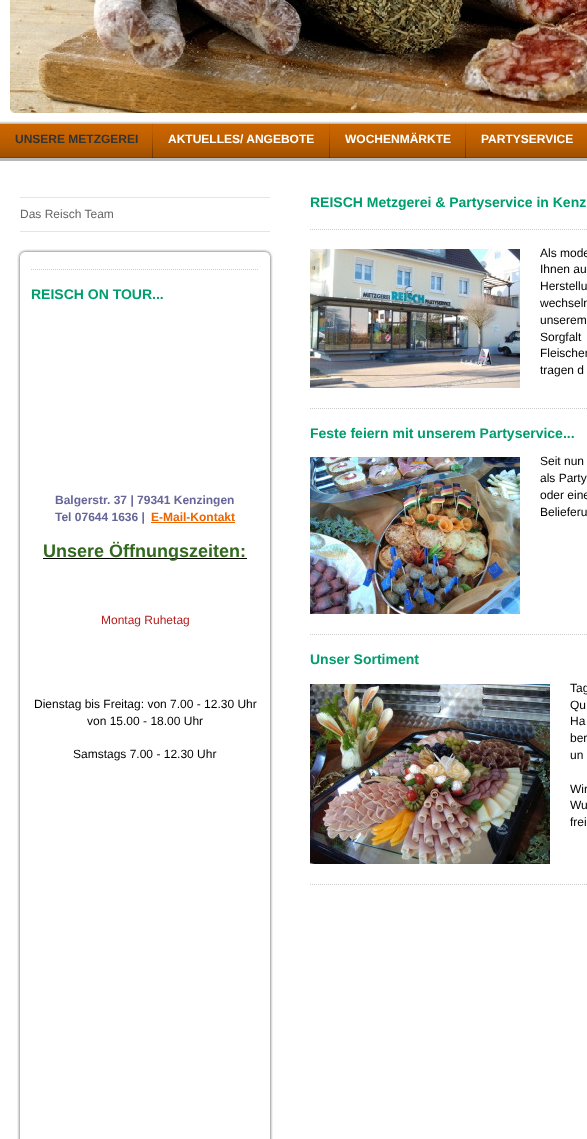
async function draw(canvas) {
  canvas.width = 587
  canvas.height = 1139
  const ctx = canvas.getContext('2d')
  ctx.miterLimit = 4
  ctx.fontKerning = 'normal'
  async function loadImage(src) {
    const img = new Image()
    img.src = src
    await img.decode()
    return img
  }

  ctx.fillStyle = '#fff'
  ctx.fillRect(0, 0, 587, 1139)
  ctx.drawImage(await loadImage('image0.png'), 10, 0, 577, 113)
  ctx.drawImage(await loadImage('image1.png'), 10, 108, 5, 5)
  ctx.drawImage(await loadImage('image2.png'), 0, 121, 587, 2)
  ctx.fillStyle = '#c60'
  ctx.fillRect(0, 123, 587, 35)
  ctx.drawImage(await loadImage('image3.png'), 0, 123, 587, 35)
  ctx.drawImage(await loadImage('image4.png'), 152, 123, 1, 35)
  ctx.font = 'bold 12px Liberation Sans'
  ctx.fillStyle = '#333'
  ctx.fillText('UNSERE METZGEREI', 15, 143)
  ctx.drawImage(await loadImage('image4.png'), 329, 123, 1, 35)
  ctx.fillStyle = '#fff'
  ctx.fillText('AKTUELLES/ ANGEBOTE', 168, 143)
  ctx.drawImage(await loadImage('image4.png'), 465, 123, 1, 35)
  ctx.fillText('WOCHENMÄRKTE', 345, 143)
  ctx.fillText('PARTYSERVICE', 481, 143)
  ctx.fillStyle = '#b7b7b7'
  ctx.fillRect(0, 158, 587, 3)
  ctx.fillStyle = '#e5e5e5'
  ctx.fillRect(20, 197, 250, 1)
  ctx.fillRect(20, 231, 250, 1)
  ctx.font = '12px Liberation Sans'
  ctx.fillStyle = '#666'
  ctx.fillText('Das Reisch Team', 20, 218)
  ctx.drawImage(await loadImage('image5.png'), 17, 249, 256, 9)
  ctx.drawImage(await loadImage('image6.png'), 17, 258, 256, 881)
  ctx.beginPath()
  ctx.moveTo(31, 269.5)
  ctx.lineTo(259, 269.5)
  ctx.strokeStyle = '#ccc'
  ctx.setLineDash([1, 1])
  ctx.stroke()
  ctx.font = 'bold 14px Liberation Sans'
  ctx.fillStyle = '#009d6d'
  ctx.fillText('REISCH ON TOUR...', 31, 299)
  ctx.font = 'bold 12px Liberation Sans'
  ctx.fillStyle = '#669'
  ctx.fillText('Balgerstr. 37 | 79341 Kenzingen', 55, 504)
  ctx.fillText('Tel 07644 1636 |', 55, 521)
  ctx.fillStyle = '#ec6500'
  ctx.fillText('E-Mail-Kontakt', 151, 521)
  ctx.fillRect(151, 522, 84, 1)
  ctx.fillStyle = '#000'
  ctx.fillRect(43, 558, 204, 1)
  ctx.font = 'bold 18px Liberation Sans'
  ctx.fillStyle = '#32691e'
  ctx.fillText('Unsere Öffnungszeiten:', 43, 557)
  ctx.font = '12px Liberation Sans'
  ctx.fillStyle = '#b71c1c'
  ctx.fillText('Montag Ruhetag', 101, 624)
  ctx.fillStyle = '#000'
  ctx.fillText('Dienstag bis Freitag: von 7.00 - 12.30 Uhr', 34, 708)
  ctx.fillText('von 15.00 - 18.00 Uhr', 87, 725)
  ctx.fillText('Samstags 7.00 - 12.30 Uhr', 73, 758)
  ctx.font = 'bold 14px Liberation Sans'
  ctx.fillStyle = '#009d6d'
  ctx.fillText('REISCH Metzgerei & Partyservice in Kenz', 310, 207)
  ctx.beginPath()
  ctx.moveTo(310, 229.5)
  ctx.lineTo(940, 229.5)
  ctx.stroke()
  ctx.drawImage(await loadImage('image7.png'), 310, 249, 210, 139)
  ctx.font = '12px Liberation Sans'
  ctx.fillStyle = '#000'
  ctx.fillText('Als mode', 540, 257)
  ctx.fillText('Ihnen au', 540, 273)
  ctx.fillText('Herstellu', 540, 290)
  ctx.fillText('wechseln', 540, 307)
  ctx.fillText('unserem', 540, 324)
  ctx.fillText('Sorgfalt', 540, 341)
  ctx.fillText('Fleischer', 540, 357)
  ctx.fillText('tragen d', 540, 374)
  ctx.beginPath()
  ctx.moveTo(310, 408.5)
  ctx.lineTo(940, 408.5)
  ctx.stroke()
  ctx.font = 'bold 14px Liberation Sans'
  ctx.fillStyle = '#009d6d'
  ctx.fillText('Feste feiern mit unserem Partyservice...', 310, 438)
  ctx.drawImage(await loadImage('image8.png'), 310, 457, 210, 157)
  ctx.font = '12px Liberation Sans'
  ctx.fillStyle = '#000'
  ctx.fillText('Seit nun', 540, 465)
  ctx.fillText('als Party', 540, 482)
  ctx.fillText('oder eine', 540, 499)
  ctx.fillText('Belieferu', 540, 516)
  ctx.beginPath()
  ctx.moveTo(310, 634.5)
  ctx.lineTo(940, 634.5)
  ctx.stroke()
  ctx.font = 'bold 14px Liberation Sans'
  ctx.fillStyle = '#009d6d'
  ctx.fillText('Unser Sortiment', 310, 664)
  ctx.drawImage(await loadImage('image9.png'), 310, 684, 240, 180)
  ctx.font = '12px Liberation Sans'
  ctx.fillStyle = '#000'
  ctx.fillText('Tag', 570, 692)
  ctx.fillText('Qu', 570, 709)
  ctx.fillText('Ha', 570, 725)
  ctx.fillText('ber', 570, 742)
  ctx.fillText('un', 570, 759)
  ctx.fillText('Wir', 570, 793)
  ctx.fillText('Wu', 570, 809)
  ctx.fillText('frei', 570, 826)
  ctx.beginPath()
  ctx.moveTo(310, 884.5)
  ctx.lineTo(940, 884.5)
  ctx.stroke()
}

draw(document.querySelector('canvas'))
